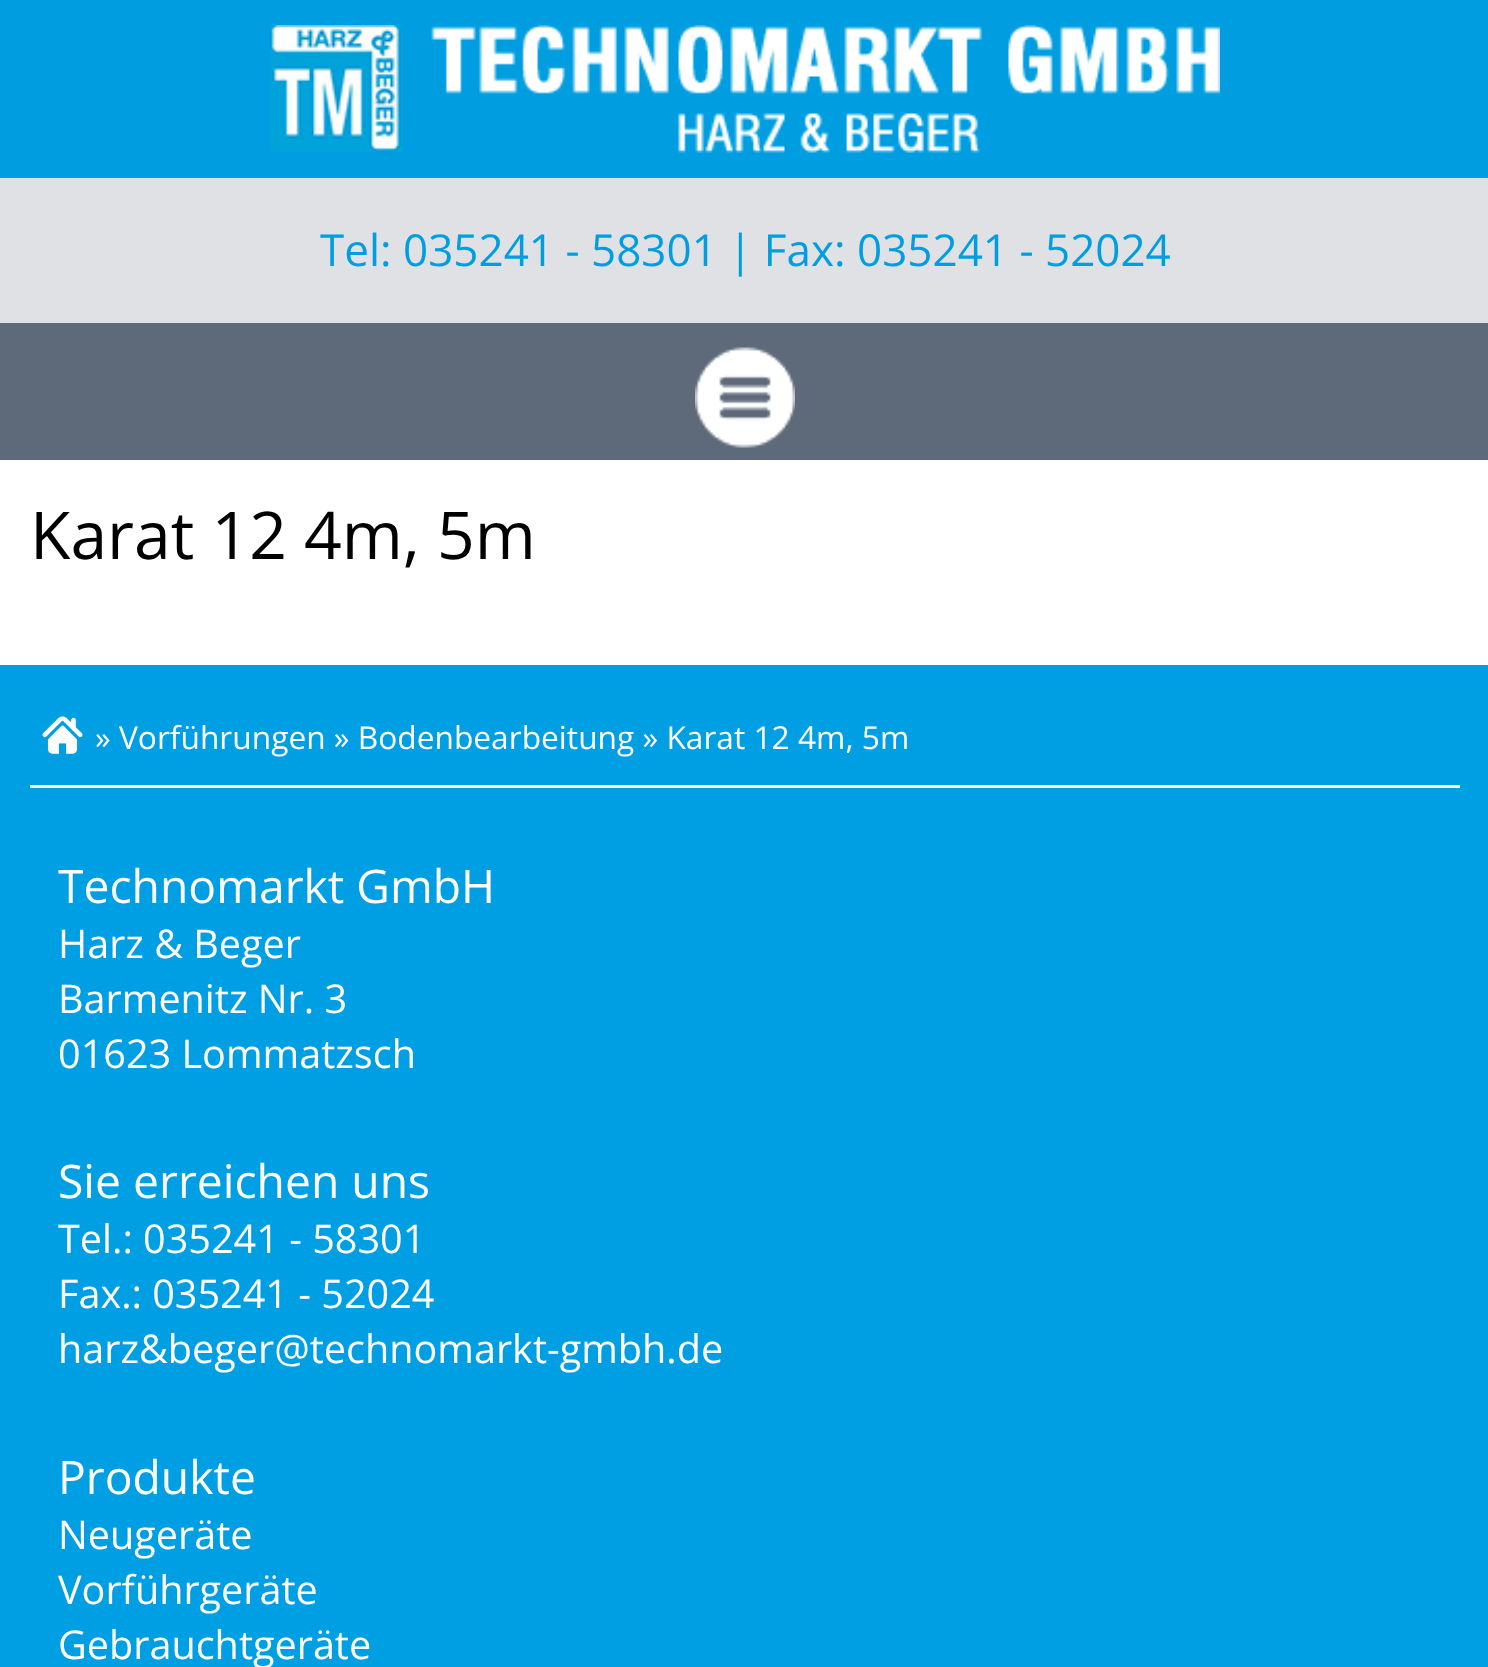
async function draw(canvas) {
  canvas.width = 1488
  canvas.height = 1667
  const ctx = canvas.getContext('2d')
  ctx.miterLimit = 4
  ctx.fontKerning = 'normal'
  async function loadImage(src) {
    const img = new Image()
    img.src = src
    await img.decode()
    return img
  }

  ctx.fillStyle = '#fff'
  ctx.fillRect(0, 0, 1488, 1667)
  ctx.fillStyle = '#5e6a7a'
  ctx.fillRect(0, 323, 1488, 137)
  ctx.fillStyle = '#009ee0'
  ctx.fillRect(0, 0, 1488, 178)
  ctx.drawImage(await loadImage('image0.png'), 270, 25, 950, 128)
  ctx.fillStyle = '#dfe1e4'
  ctx.fillRect(0, 178, 1488, 145)
  ctx.font = '44px Open Sans'
  ctx.fillStyle = '#009ee0'
  ctx.fillText('Tel: 035241 - 58301 | Fax: 035241 - 52024', 320, 266)
  ctx.drawImage(await loadImage('image1.png'), 695, 347, 100, 101)
  ctx.font = '66px Open Sans'
  ctx.fillStyle = '#000'
  ctx.fillText('Karat 12 4m, 5m', 30, 559)
  ctx.fillStyle = '#009ee3'
  ctx.fillRect(0, 665, 1488, 1002)
  ctx.fillStyle = '#fff'
  ctx.fillRect(30, 785, 1430, 3)
  ctx.drawImage(await loadImage('image2.png'), 42, 716, 41, 38)
  ctx.font = '31.7px Open Sans'
  ctx.fillText('» Vorführungen » Bodenbearbeitung » Karat 12 4m, 5m', 95, 749)
  ctx.font = '46.25px Open Sans'
  ctx.fillText('Technomarkt GmbH', 58, 903)
  ctx.font = '39.6px Open Sans'
  ctx.fillText('Harz & Beger', 58, 958)
  ctx.fillText('Barmenitz Nr. 3', 58, 1013)
  ctx.fillText('01623 Lommatzsch', 58, 1068)
  ctx.font = '46.25px Open Sans'
  ctx.fillText('Sie erreichen uns', 58, 1198)
  ctx.font = '39.6px Open Sans'
  ctx.fillText('Tel.: 035241 - 58301', 58, 1253)
  ctx.fillText('Fax.: 035241 - 52024', 58, 1308)
  ctx.fillText('harz&beger@technomarkt-gmbh.de', 58, 1363)
  ctx.font = '46.25px Open Sans'
  ctx.fillText('Produkte', 58, 1494)
  ctx.font = '39.6px Open Sans'
  ctx.fillText('Neugeräte', 58, 1549)
  ctx.fillText('Vorführgeräte', 58, 1604)
  ctx.fillText('Gebrauchtgeräte', 58, 1659)
}

draw(document.querySelector('canvas'))
